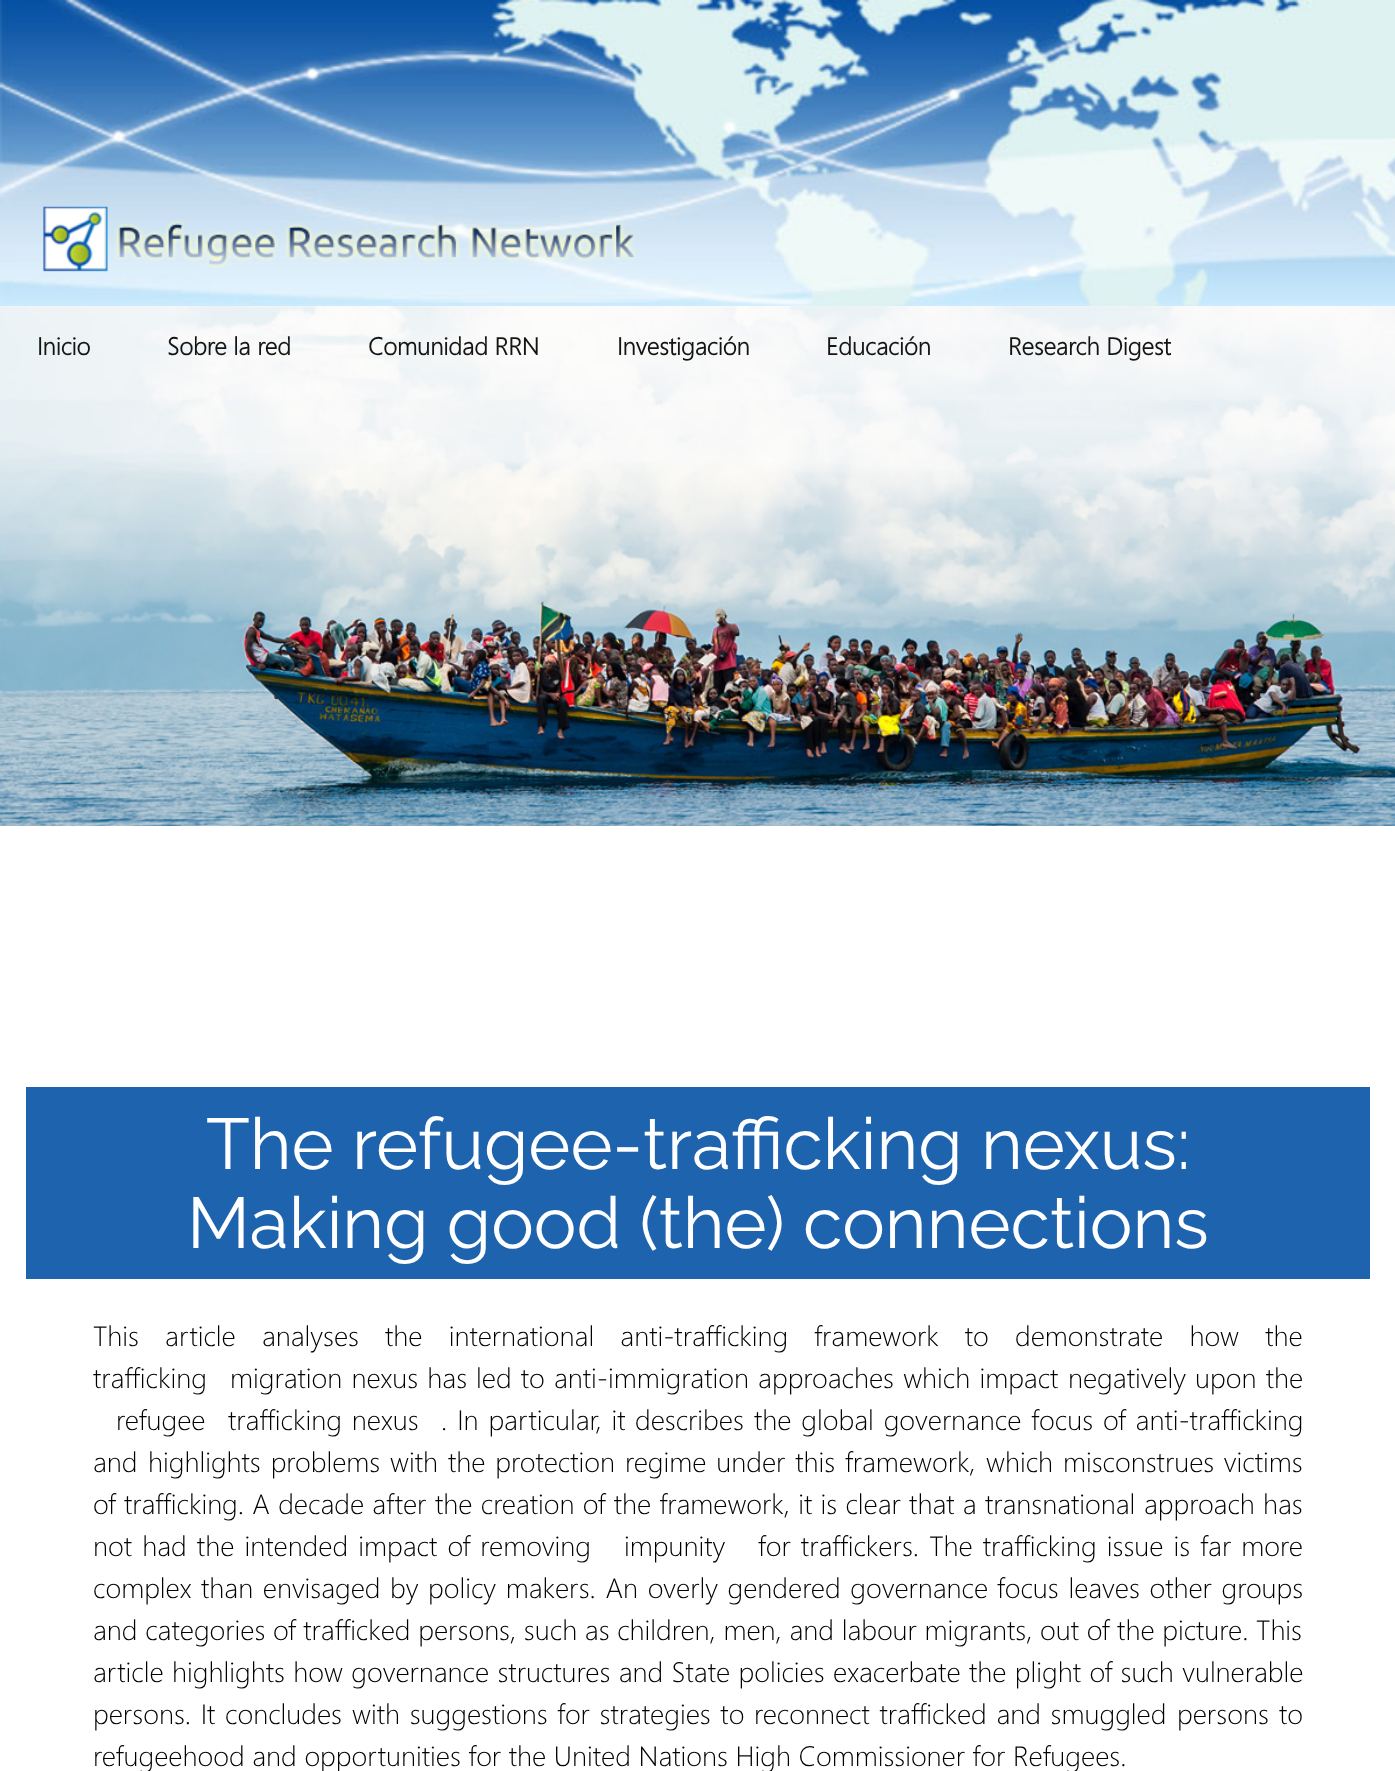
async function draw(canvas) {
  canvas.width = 1395
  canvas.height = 1771
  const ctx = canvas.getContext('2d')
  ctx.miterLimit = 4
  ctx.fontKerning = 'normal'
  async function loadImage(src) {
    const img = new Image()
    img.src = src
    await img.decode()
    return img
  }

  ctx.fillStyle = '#fff'
  ctx.fillRect(0, 0, 1395, 1771)
  ctx.drawImage(await loadImage('image0.png'), 0, 0, 1395, 307)
  ctx.drawImage(await loadImage('image1.png'), 43, 206, 594, 66)
  ctx.drawImage(await loadImage('image2.png'), 0, 306, 1395, 520)
  ctx.font = 'bold 24.5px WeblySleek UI'
  ctx.fillStyle = '#141412'
  ctx.fillText('Inicio', 37, 355)
  ctx.fillText('Sobre la red', 167, 355)
  ctx.fillText('Comunidad RRN', 368, 355)
  ctx.fillText('Investigación', 617, 355)
  ctx.fillText('Educación', 826, 355)
  ctx.fillText('Research Digest', 1008, 355)
  ctx.fillStyle = '#1e63ae'
  ctx.fillRect(26, 1087, 1344, 192)
  ctx.font = '71.75px Raleway'
  ctx.fillStyle = '#fff'
  ctx.fillText('The refugee-trafficking nexus:', 206, 1169)
  ctx.fillText('Making good (the) connections', 187, 1248)
  ctx.wordSpacing = '18.5px'
  ctx.font = '300 28px WeblySleek UI'
  ctx.fillStyle = '#000'
  ctx.fillText('This article analyses the international anti-trafficking framework to', 93, 1346)
  ctx.fillText('demonstrate how the', 1015, 1346)
  ctx.wordSpacing = '0px'
  ctx.fillText('trafficking', 93, 1388)
  ctx.wordSpacing = '1.5px'
  ctx.fillText('migration nexus has', 230, 1388)
  ctx.fillText('led to anti-immigration approaches which impact', 476, 1388)
  ctx.fillText('negatively upon the', 1068, 1388)
  ctx.wordSpacing = '0px'
  ctx.fillText('refugee', 116, 1430)
  ctx.wordSpacing = '2.25px'
  ctx.fillText('trafficking nexus', 228, 1430)
  ctx.fillText('. In particular, it', 441, 1430)
  ctx.wordSpacing = '0px'
  ctx.fillText('describes', 635, 1430)
  ctx.wordSpacing = '2.25px'
  ctx.fillText('the global governance focus of anti-trafficking', 754, 1430)
  ctx.wordSpacing = '0px'
  ctx.fillText('and', 93, 1472)
  ctx.wordSpacing = '2.25px'
  ctx.fillText('highlights problems with the protection regime under this framework,', 148, 1472)
  ctx.wordSpacing = '0px'
  ctx.fillText('which', 986, 1472)
  ctx.wordSpacing = '2px'
  ctx.fillText('misconstrues victims', 1063, 1472)
  ctx.wordSpacing = '0.6px'
  ctx.fillText('of trafficking. A decade after', 93, 1514)
  ctx.fillText('the creation of the framework, it is clear that a transnational', 435, 1514)
  ctx.wordSpacing = '0px'
  ctx.fillText('approach', 1144, 1514)
  ctx.fillText('has', 1263, 1514)
  ctx.wordSpacing = '2.5px'
  ctx.fillText('not had the intended impact of removing', 93, 1556)
  ctx.wordSpacing = '0px'
  ctx.fillText('impunity', 624, 1556)
  ctx.wordSpacing = '2.5px'
  ctx.fillText('for traffickers. The trafficking issue is far more', 758, 1556)
  ctx.wordSpacing = '0px'
  ctx.fillText('complex', 93, 1598)
  ctx.wordSpacing = '2px'
  ctx.fillText('than envisaged', 201, 1598)
  ctx.fillText('by policy makers. An overly gendered governance', 390, 1598)
  ctx.fillText('focus leaves other groups', 997, 1598)
  ctx.wordSpacing = '0px'
  ctx.fillText('and categories of trafficked persons, such as children, men, and labour migrants, out of the picture. This', 93, 1640)
  ctx.wordSpacing = '0.75px'
  ctx.fillText('article highlights how governance structures and State policies', 93, 1682)
  ctx.wordSpacing = '0px'
  ctx.fillText('exacerbate', 833, 1682)
  ctx.wordSpacing = '0.75px'
  ctx.fillText('the plight of such vulnerable', 969, 1682)
  ctx.wordSpacing = '2px'
  ctx.fillText('persons. It concludes', 93, 1724)
  ctx.fillText('with suggestions for strategies to reconnect trafficked and smuggled', 352, 1724)
  ctx.wordSpacing = '0px'
  ctx.fillText('persons', 1177, 1724)
  ctx.fillText('to', 1279, 1724)
  ctx.fillText('refugeehood and opportunities for the United Nations High Commissioner for Refugees.', 93, 1766)
}

draw(document.querySelector('canvas'))
